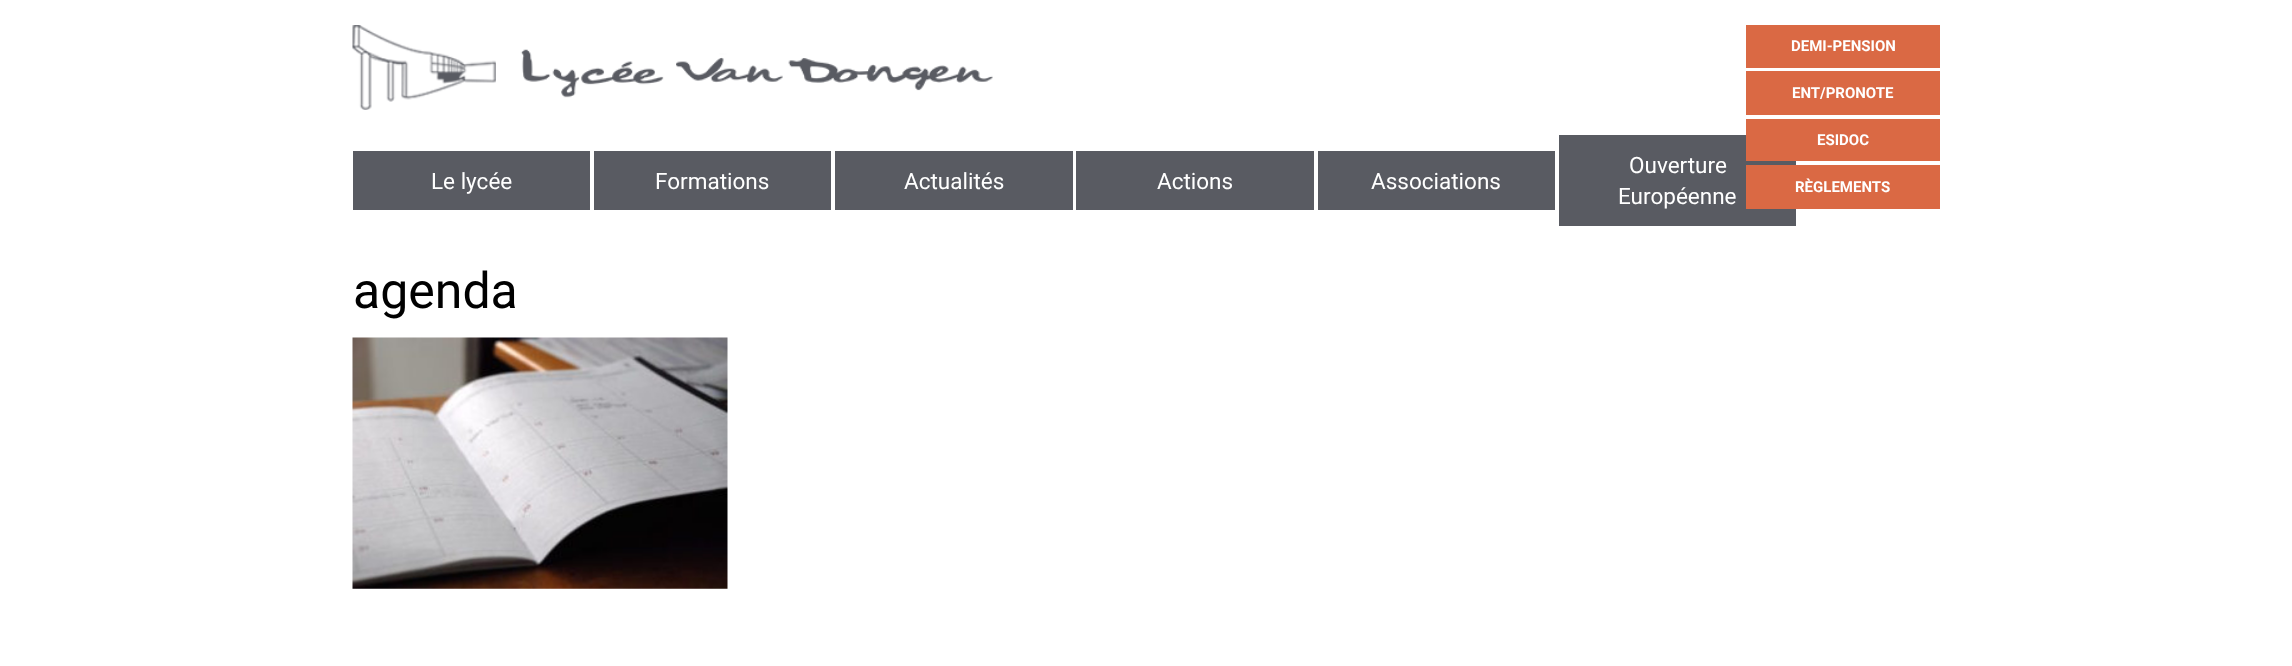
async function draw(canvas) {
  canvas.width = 2292
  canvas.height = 666
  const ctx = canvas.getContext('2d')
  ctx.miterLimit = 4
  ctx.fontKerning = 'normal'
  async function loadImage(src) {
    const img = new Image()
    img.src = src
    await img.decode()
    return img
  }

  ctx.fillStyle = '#fff'
  ctx.fillRect(0, 0, 2292, 666)
  ctx.drawImage(await loadImage('image0.png'), 352, 25, 641, 85)
  ctx.fillStyle = '#595b62'
  ctx.fillRect(353, 151, 237, 59)
  ctx.font = '22.5px Roboto'
  ctx.fillStyle = '#fff'
  ctx.fillText('Le lycée', 431, 189)
  ctx.fillStyle = '#595b62'
  ctx.fillRect(594, 151, 237, 59)
  ctx.fillStyle = '#fff'
  ctx.fillText('Formations', 655, 189)
  ctx.fillStyle = '#595b62'
  ctx.fillRect(835, 151, 238, 59)
  ctx.fillStyle = '#fff'
  ctx.fillText('Actualités', 904, 189)
  ctx.fillStyle = '#595b62'
  ctx.fillRect(1076, 151, 238, 59)
  ctx.fillStyle = '#fff'
  ctx.fillText('Actions', 1157, 189)
  ctx.fillStyle = '#595b62'
  ctx.fillRect(1318, 151, 237, 59)
  ctx.fillStyle = '#fff'
  ctx.fillText('Associations', 1371, 189)
  ctx.fillStyle = '#595b62'
  ctx.fillRect(1559, 135, 237, 91)
  ctx.fillStyle = '#fff'
  ctx.fillText('Ouverture', 1629, 173)
  ctx.fillText('Européenne', 1618, 204)
  ctx.fillStyle = '#da6944'
  ctx.fillRect(1746, 25, 194, 43)
  ctx.font = 'bold 15px Roboto'
  ctx.fillStyle = '#fff'
  ctx.fillText('DEMI-PENSION', 1791, 51)
  ctx.fillStyle = '#da6944'
  ctx.fillRect(1746, 71, 194, 44)
  ctx.fillStyle = '#fff'
  ctx.fillText('ENT/PRONOTE', 1792, 98)
  ctx.fillStyle = '#da6944'
  ctx.fillRect(1746, 119, 194, 42)
  ctx.fillStyle = '#fff'
  ctx.fillText('ESIDOC', 1817, 145)
  ctx.fillStyle = '#da6944'
  ctx.fillRect(1746, 165, 194, 44)
  ctx.fillStyle = '#fff'
  ctx.fillText('RÈGLEMENTS', 1795, 192)
  ctx.font = '50px Roboto'
  ctx.fillStyle = '#000'
  ctx.fillText('agenda', 353, 308)
  ctx.drawImage(await loadImage('image1.png'), 352, 337, 376, 252)
}

draw(document.querySelector('canvas'))
